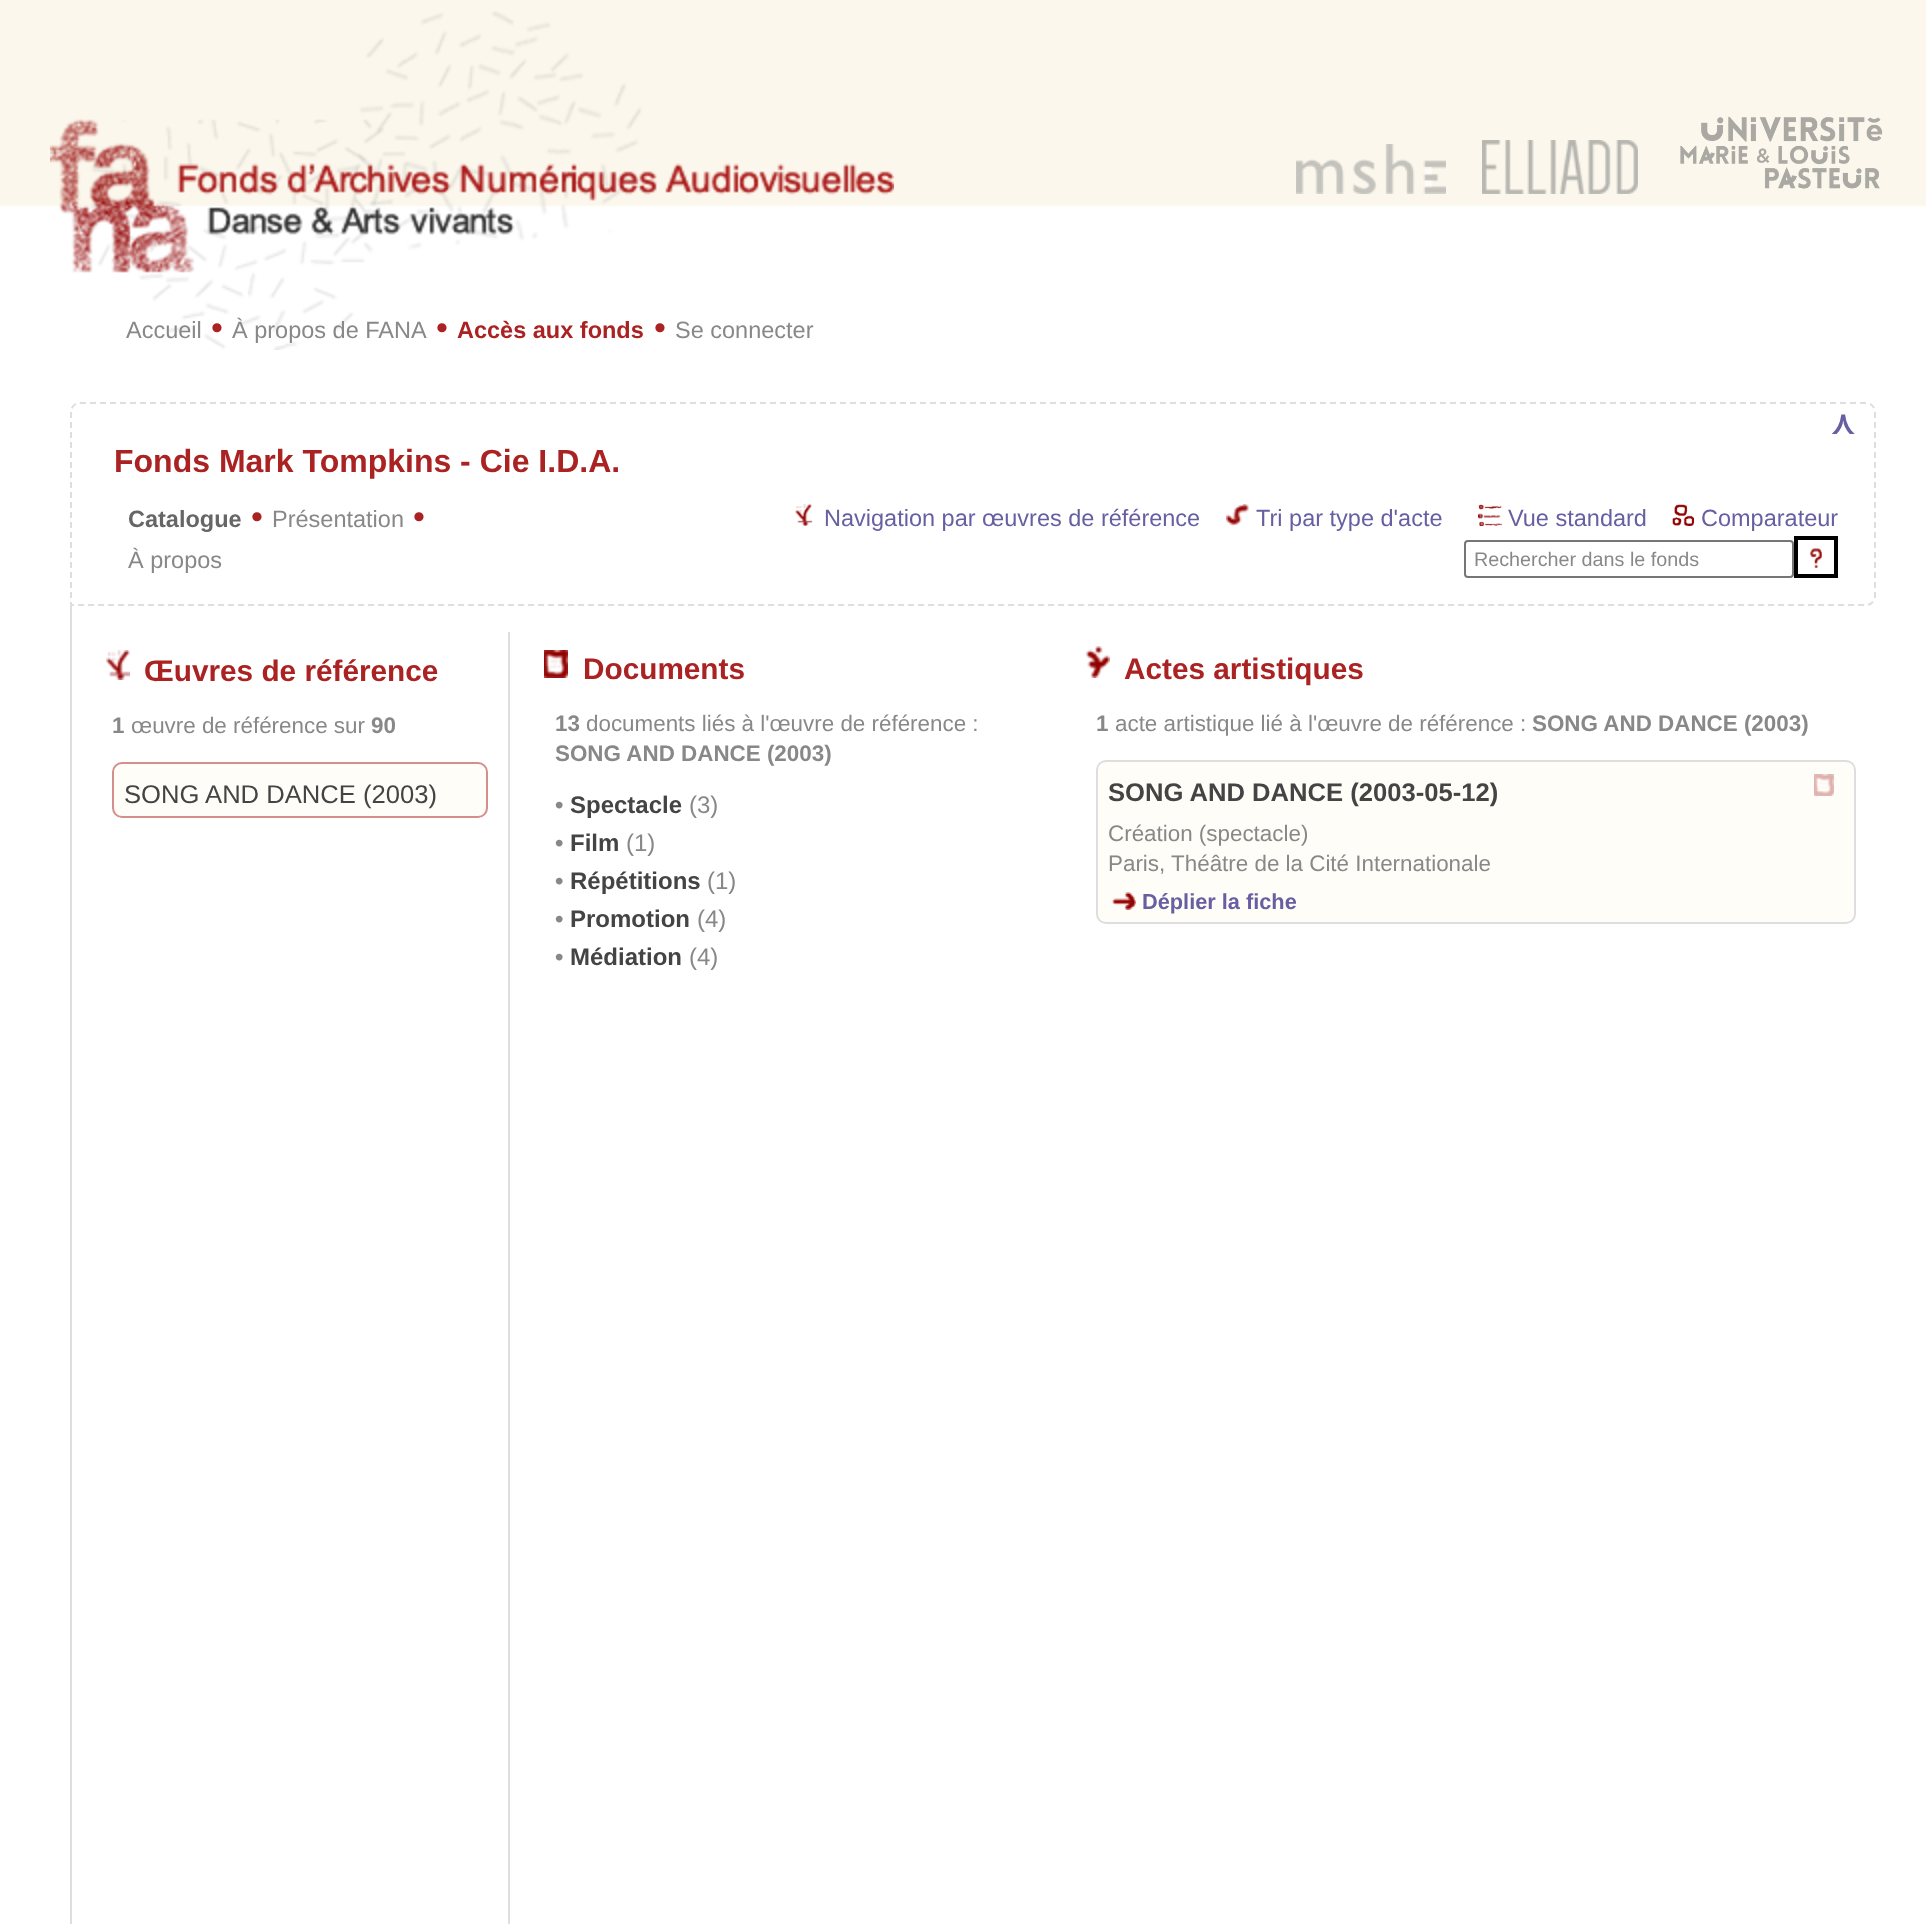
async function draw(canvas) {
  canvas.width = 1926
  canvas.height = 1924
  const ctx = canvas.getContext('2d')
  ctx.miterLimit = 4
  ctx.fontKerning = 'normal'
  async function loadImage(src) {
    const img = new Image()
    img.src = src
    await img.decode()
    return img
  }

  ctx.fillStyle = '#fff'
  ctx.fillRect(0, 0, 1926, 1924)
  ctx.drawImage(await loadImage('image0.png'), 0, 0, 1926, 207)
  ctx.drawImage(await loadImage('image1.png'), 1296, 144, 150, 50)
  ctx.drawImage(await loadImage('image2.png'), 1482, 140, 156, 54)
  ctx.drawImage(await loadImage('image3.png'), 1680, 116, 203, 73)
  ctx.drawImage(await loadImage('image4.png'), 50, 11, 844, 339)
  ctx.font = '23.5px Liberation Sans'
  ctx.fillStyle = '#888'
  ctx.fillText('Accueil', 126, 338)
  ctx.font = '34px Liberation Sans'
  ctx.fillStyle = '#a22'
  ctx.fillText('•', 211, 339)
  ctx.font = '23.5px Liberation Sans'
  ctx.fillStyle = '#888'
  ctx.fillText('À propos de FANA', 232, 338)
  ctx.font = '34px Liberation Sans'
  ctx.fillStyle = '#a22'
  ctx.fillText('•', 436, 339)
  ctx.font = 'bold 23.5px Liberation Sans'
  ctx.fillText('Accès aux fonds', 457, 338)
  ctx.font = '34px Liberation Sans'
  ctx.fillText('•', 654, 339)
  ctx.font = '23.5px Liberation Sans'
  ctx.fillStyle = '#888'
  ctx.fillText('Se connecter', 675, 338)
  ctx.beginPath()
  ctx.moveTo(80, 403)
  ctx.lineTo(1866, 403)
  ctx.bezierCurveTo(1871, 403, 1875, 407, 1875, 412)
  ctx.lineTo(1875, 596)
  ctx.bezierCurveTo(1875, 601, 1871, 605, 1866, 605)
  ctx.lineTo(71, 605)
  ctx.lineTo(71, 412)
  ctx.bezierCurveTo(71, 407, 75, 403, 80, 403)
  ctx.closePath()
  ctx.strokeStyle = '#dedede'
  ctx.lineWidth = 2
  ctx.setLineDash([6, 4])
  ctx.stroke()
  ctx.font = 'bold 32px DejaVu Sans'
  ctx.fillStyle = '#675fa1'
  ctx.fillText('⋏', 1831, 434)
  ctx.font = 'bold 32px Liberation Sans'
  ctx.fillStyle = '#a22'
  ctx.fillText('Fonds Mark Tompkins - Cie I.D.A.', 114, 472)
  ctx.font = 'bold 23.5px Liberation Sans'
  ctx.fillStyle = '#666'
  ctx.fillText('Catalogue', 128, 527)
  ctx.font = '34px Liberation Sans'
  ctx.fillStyle = '#a22'
  ctx.fillText('•', 251, 528)
  ctx.font = '23.5px Liberation Sans'
  ctx.fillStyle = '#888'
  ctx.fillText('Présentation', 272, 527)
  ctx.font = '34px Liberation Sans'
  ctx.fillStyle = '#a22'
  ctx.fillText('•', 413, 528)
  ctx.font = '23.5px Liberation Sans'
  ctx.fillStyle = '#888'
  ctx.fillText('À propos', 128, 568)
  ctx.drawImage(await loadImage('image5.png'), 795, 504, 18, 22)
  ctx.fillStyle = '#675fa1'
  ctx.fillText('Navigation par œuvres de référence', 824, 526)
  ctx.drawImage(await loadImage('image6.png'), 1226, 504, 24, 22)
  ctx.fillText('Tri par type d\'acte', 1256, 526)
  ctx.drawImage(await loadImage('image7.png'), 1478, 504, 24, 22)
  ctx.fillText('Vue standard', 1508, 526)
  ctx.drawImage(await loadImage('image8.png'), 1672, 504, 22, 22)
  ctx.fillText('Comparateur', 1701, 526)
  ctx.beginPath()
  ctx.roundRect(1465, 541, 328, 36, 3)
  ctx.strokeStyle = '#767676'
  ctx.setLineDash([])
  ctx.stroke()
  ctx.font = '19.75px Liberation Sans'
  ctx.fillStyle = '#888'
  ctx.fillText('Rechercher dans le fonds', 1474, 566)
  ctx.drawImage(await loadImage('image9.png'), 1810, 548, 12, 20)
  ctx.strokeStyle = '#000'
  ctx.lineWidth = 4
  ctx.strokeRect(1796, 538, 40, 38)
  ctx.fillStyle = '#dedede'
  ctx.beginPath()
  ctx.moveTo(70, 606)
  ctx.lineTo(508, 606)
  ctx.lineTo(508, 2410)
  ctx.bezierCurveTo(508, 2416, 504, 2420, 498, 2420)
  ctx.lineTo(80, 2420)
  ctx.bezierCurveTo(74, 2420, 70, 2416, 70, 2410)
  ctx.closePath()
  ctx.moveTo(72, 606)
  ctx.lineTo(508, 606)
  ctx.lineTo(508, 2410)
  ctx.bezierCurveTo(508, 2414, 504, 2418, 498, 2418)
  ctx.lineTo(80, 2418)
  ctx.bezierCurveTo(76, 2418, 72, 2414, 72, 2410)
  ctx.closePath()
  ctx.fill('evenodd')
  ctx.drawImage(await loadImage('image10.png'), 106, 650, 24, 30)
  ctx.font = 'bold 29.75px Liberation Sans'
  ctx.fillStyle = '#a22'
  ctx.fillText('Œuvres de référence', 144, 681)
  ctx.font = 'bold 22.4px Liberation Sans'
  ctx.fillStyle = '#888'
  ctx.fillText('1', 112, 733)
  ctx.font = '22.4px Liberation Sans'
  ctx.fillText('œuvre de référence sur', 131, 733)
  ctx.font = 'bold 22.4px Liberation Sans'
  ctx.fillText('90', 371, 733)
  ctx.fillStyle = '#fffdf8'
  ctx.beginPath()
  ctx.roundRect(112, 762, 376, 56, 10)
  ctx.fill()
  ctx.beginPath()
  ctx.roundRect(113, 763, 374, 54, 9)
  ctx.strokeStyle = '#aa222280'
  ctx.lineWidth = 2
  ctx.stroke()
  ctx.font = '25.6px Liberation Sans'
  ctx.fillStyle = '#444'
  ctx.fillText('SONG AND DANCE (2003)', 124, 803)
  ctx.fillStyle = '#dedede'
  ctx.fillRect(508, 632, 2, 1292)
  ctx.drawImage(await loadImage('image11.png'), 544, 650, 24, 28)
  ctx.font = 'bold 29.75px Liberation Sans'
  ctx.fillStyle = '#a22'
  ctx.fillText('Documents', 583, 679)
  ctx.font = 'bold 22.4px Liberation Sans'
  ctx.fillStyle = '#888'
  ctx.fillText('13', 555, 731)
  ctx.font = '22.4px Liberation Sans'
  ctx.fillText('documents liés à l\'œuvre de référence :', 586, 731)
  ctx.font = 'bold 22.4px Liberation Sans'
  ctx.fillText('SONG AND DANCE (2003)', 555, 761)
  ctx.font = 'bold 24px Liberation Sans'
  ctx.fillText('•', 555, 813)
  ctx.fillStyle = '#444'
  ctx.fillText('Spectacle', 570, 813)
  ctx.font = '24px Liberation Sans'
  ctx.fillStyle = '#888'
  ctx.fillText('(3)', 689, 813)
  ctx.font = 'bold 24px Liberation Sans'
  ctx.fillText('•', 555, 851)
  ctx.fillStyle = '#444'
  ctx.fillText('Film', 570, 851)
  ctx.font = '24px Liberation Sans'
  ctx.fillStyle = '#888'
  ctx.fillText('(1)', 626, 851)
  ctx.font = 'bold 24px Liberation Sans'
  ctx.fillText('•', 555, 889)
  ctx.fillStyle = '#444'
  ctx.fillText('Répétitions', 570, 889)
  ctx.font = '24px Liberation Sans'
  ctx.fillStyle = '#888'
  ctx.fillText('(1)', 707, 889)
  ctx.font = 'bold 24px Liberation Sans'
  ctx.fillText('•', 555, 927)
  ctx.fillStyle = '#444'
  ctx.fillText('Promotion', 570, 927)
  ctx.font = '24px Liberation Sans'
  ctx.fillStyle = '#888'
  ctx.fillText('(4)', 697, 927)
  ctx.font = 'bold 24px Liberation Sans'
  ctx.fillText('•', 555, 965)
  ctx.fillStyle = '#444'
  ctx.fillText('Médiation', 570, 965)
  ctx.font = '24px Liberation Sans'
  ctx.fillStyle = '#888'
  ctx.fillText('(4)', 689, 965)
  ctx.drawImage(await loadImage('image12.png'), 1086, 646, 24, 32)
  ctx.font = 'bold 29.75px Liberation Sans'
  ctx.fillStyle = '#a22'
  ctx.fillText('Actes artistiques', 1124, 679)
  ctx.font = 'bold 22.4px Liberation Sans'
  ctx.fillStyle = '#888'
  ctx.fillText('1', 1096, 731)
  ctx.font = '22.4px Liberation Sans'
  ctx.fillText('acte artistique lié à l\'œuvre de référence :', 1115, 731)
  ctx.font = 'bold 22.4px Liberation Sans'
  ctx.fillText('SONG AND DANCE (2003)', 1532, 731)
  ctx.fillStyle = '#fffdf8'
  ctx.beginPath()
  ctx.roundRect(1097, 761, 758, 162, 9)
  ctx.fill()
  ctx.strokeStyle = '#dedede'
  ctx.stroke()
  ctx.font = 'bold 25.6px Liberation Sans'
  ctx.fillStyle = '#444'
  ctx.fillText('SONG AND DANCE (2003-05-12)', 1108, 801)
  ctx.drawImage(await loadImage('image13.png'), 1814, 774, 20, 22)
  ctx.font = '22.4px Liberation Sans'
  ctx.fillStyle = '#888'
  ctx.fillText('Création (spectacle)', 1108, 841)
  ctx.fillText('Paris, Théâtre de la Cité Internationale', 1108, 871)
  ctx.drawImage(await loadImage('image14.png'), 1112, 892, 24, 18)
  ctx.font = 'bold 21.75px Liberation Sans'
  ctx.fillStyle = '#675fa1'
  ctx.fillText('Déplier la fiche', 1142, 909)
}

draw(document.querySelector('canvas'))
